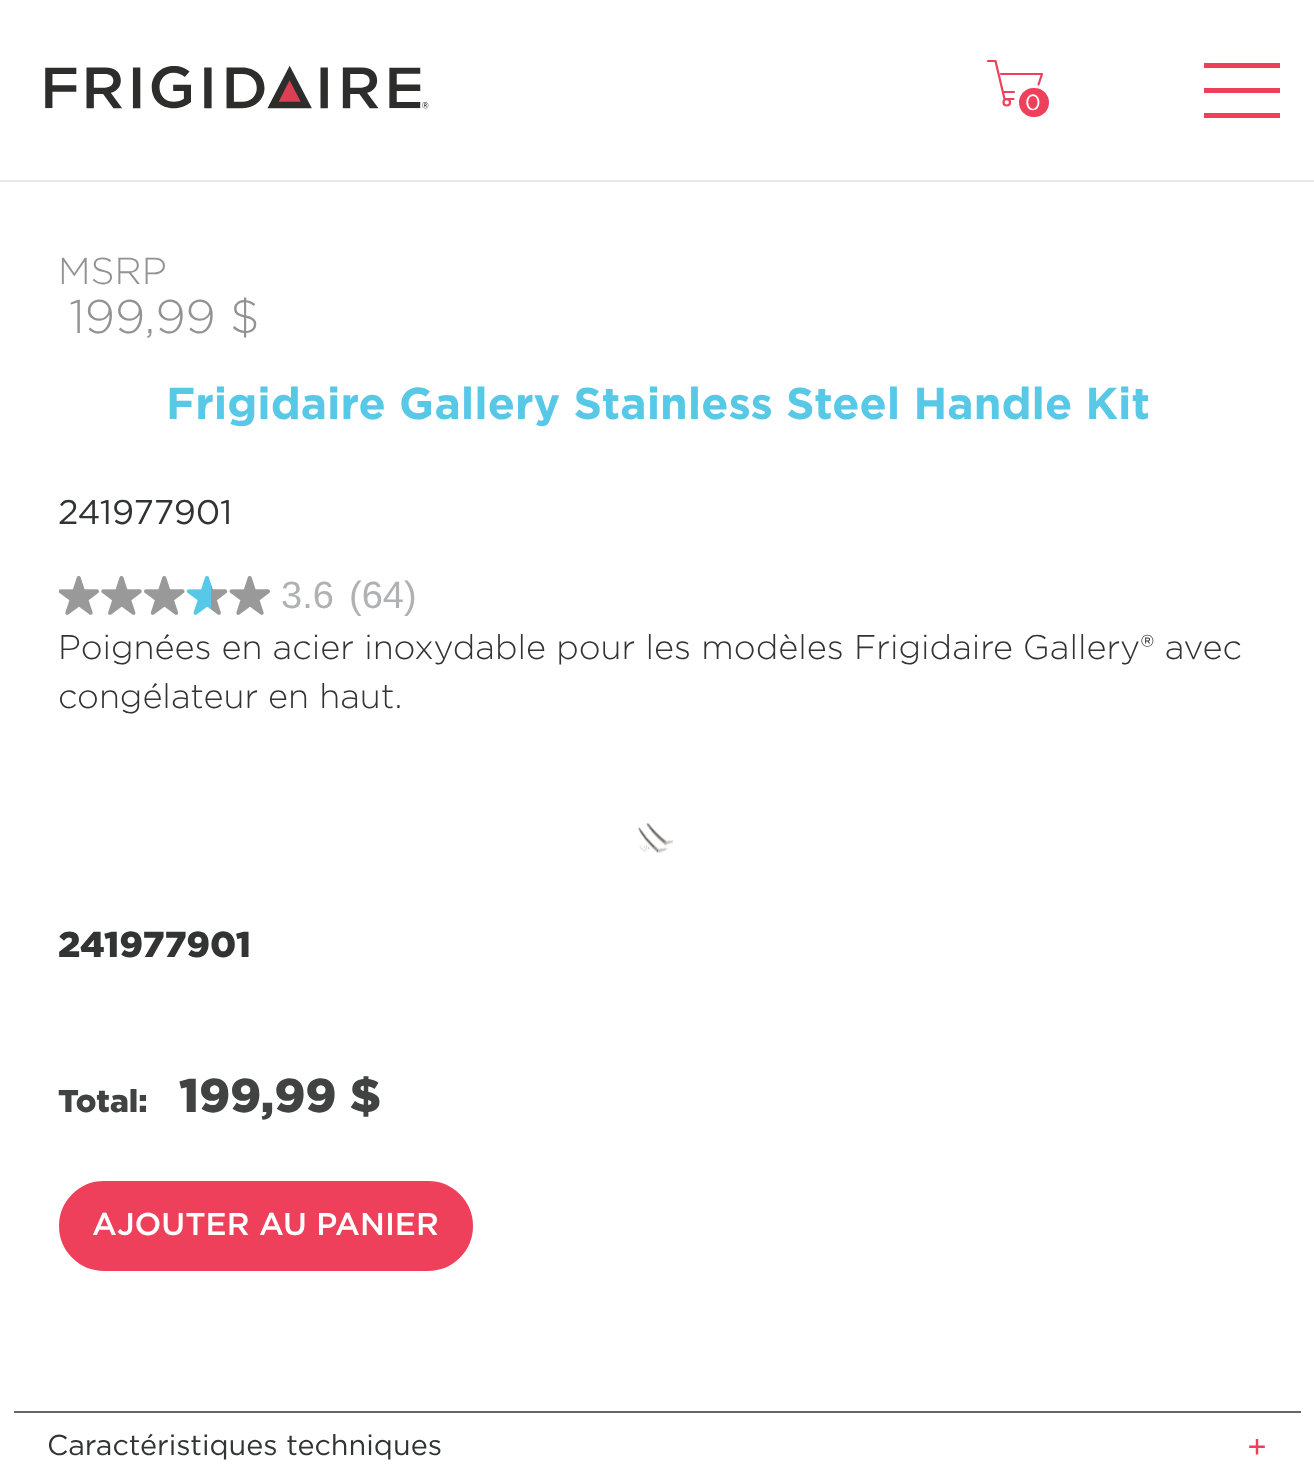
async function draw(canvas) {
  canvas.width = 1314
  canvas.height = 1475
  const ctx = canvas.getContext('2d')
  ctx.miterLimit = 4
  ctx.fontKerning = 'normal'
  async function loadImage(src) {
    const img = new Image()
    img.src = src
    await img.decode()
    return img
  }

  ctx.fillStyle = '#fff'
  ctx.fillRect(0, 0, 1314, 1475)
  ctx.fillStyle = '#e7e7e7'
  ctx.fillRect(0, 180, 1314, 2)
  ctx.drawImage(await loadImage('image0.png'), 45, 65, 384, 44)
  ctx.beginPath()
  ctx.moveTo(1003.5, 102.5)
  ctx.bezierCurveTo(1003.5, 106.5, 1010, 106.5, 1010, 102.5)
  ctx.bezierCurveTo(1010, 98, 1003.5, 98, 1003.5, 102.5)
  ctx.closePath()
  ctx.moveTo(988, 61)
  ctx.lineTo(995.5, 61)
  ctx.lineTo(1004.5, 99)
  ctx.lineTo(1013.5, 99)
  ctx.moveTo(1038.5, 84.5)
  ctx.lineTo(1042, 74)
  ctx.lineTo(1001, 74)
  ctx.moveTo(1003.5, 92)
  ctx.lineTo(1014, 92)
  ctx.strokeStyle = '#ee405a'
  ctx.lineWidth = 2.2
  ctx.lineCap = 'round'
  ctx.lineJoin = 'round'
  ctx.stroke()
  ctx.fillStyle = '#ee405a'
  ctx.beginPath()
  ctx.roundRect(1019, 88, 30, 29, 14.5)
  ctx.fill()
  ctx.font = '22px Gotham'
  ctx.fillStyle = '#fff'
  ctx.fillText('0', 1025, 110)
  ctx.fillStyle = '#ee405a'
  ctx.fillRect(1204, 63, 76, 5)
  ctx.fillRect(1204, 88, 76, 5)
  ctx.fillRect(1204, 113, 76, 5)
  ctx.font = '300 37.5px Gotham'
  ctx.fillStyle = '#929292'
  ctx.fillText('MSRP', 58, 284)
  ctx.font = '300 47px Gotham'
  ctx.fillText('199,99 $', 69, 333)
  ctx.font = 'bold 44.5px Gotham'
  ctx.fillStyle = '#58c8e7'
  ctx.fillText('Frigidaire Gallery Stainless Steel Handle Kit', 166, 419)
  ctx.font = '34.2px Gotham'
  ctx.fillStyle = '#323333'
  ctx.fillText('241977901', 58, 524)
  ctx.drawImage(await loadImage('image1.png'), 59, 576, 40, 39)
  ctx.drawImage(await loadImage('image2.png'), 101, 576, 41, 39)
  ctx.drawImage(await loadImage('image3.png'), 144, 576, 41, 39)
  ctx.drawImage(await loadImage('image4.png'), 186, 576, 42, 39)
  ctx.drawImage(await loadImage('image5.png'), 229, 576, 41, 39)
  ctx.font = '38px Liberation Sans'
  ctx.fillStyle = '#b0b1b3'
  ctx.fillText('3.6', 281, 608)
  ctx.fillText('(64)', 349, 608)
  ctx.font = '300 34.2px Gotham'
  ctx.fillStyle = '#323333'
  ctx.fillText('Poignées en acier inoxydable pour les modèles Frigidaire Gallery® avec', 58, 659)
  ctx.fillText('congélateur en haut.', 58, 708)
  ctx.drawImage(await loadImage('image6.png'), 638, 823, 35, 30)
  ctx.font = '900 36px Gotham'
  ctx.fillText('241977901', 58, 957)
  ctx.font = '900 31.5px Gotham'
  ctx.fillStyle = '#414242'
  ctx.fillText('Total:', 58, 1112)
  ctx.font = '900 47.25px Gotham'
  ctx.fillText('199,99 $', 179, 1112)
  ctx.fillStyle = '#ee405a'
  ctx.beginPath()
  ctx.roundRect(61.5, 1183.5, 409, 85, 42.5)
  ctx.fill()
  ctx.lineWidth = 5
  ctx.lineJoin = 'miter'
  ctx.stroke()
  ctx.font = '500 31.5px Gotham'
  ctx.fillStyle = '#fff'
  ctx.fillText('AJOUTER AU PANIER', 92, 1235)
  ctx.fillStyle = '#646767'
  ctx.fillRect(14, 1411, 1287, 2)
  ctx.font = '28.75px Gotham'
  ctx.fillStyle = '#323333'
  ctx.fillText('Caractéristiques techniques', 47, 1455)
  ctx.font = '32px Gotham'
  ctx.fillStyle = '#ee405a'
  ctx.fillText('+', 1247, 1458)
}

draw(document.querySelector('canvas'))
